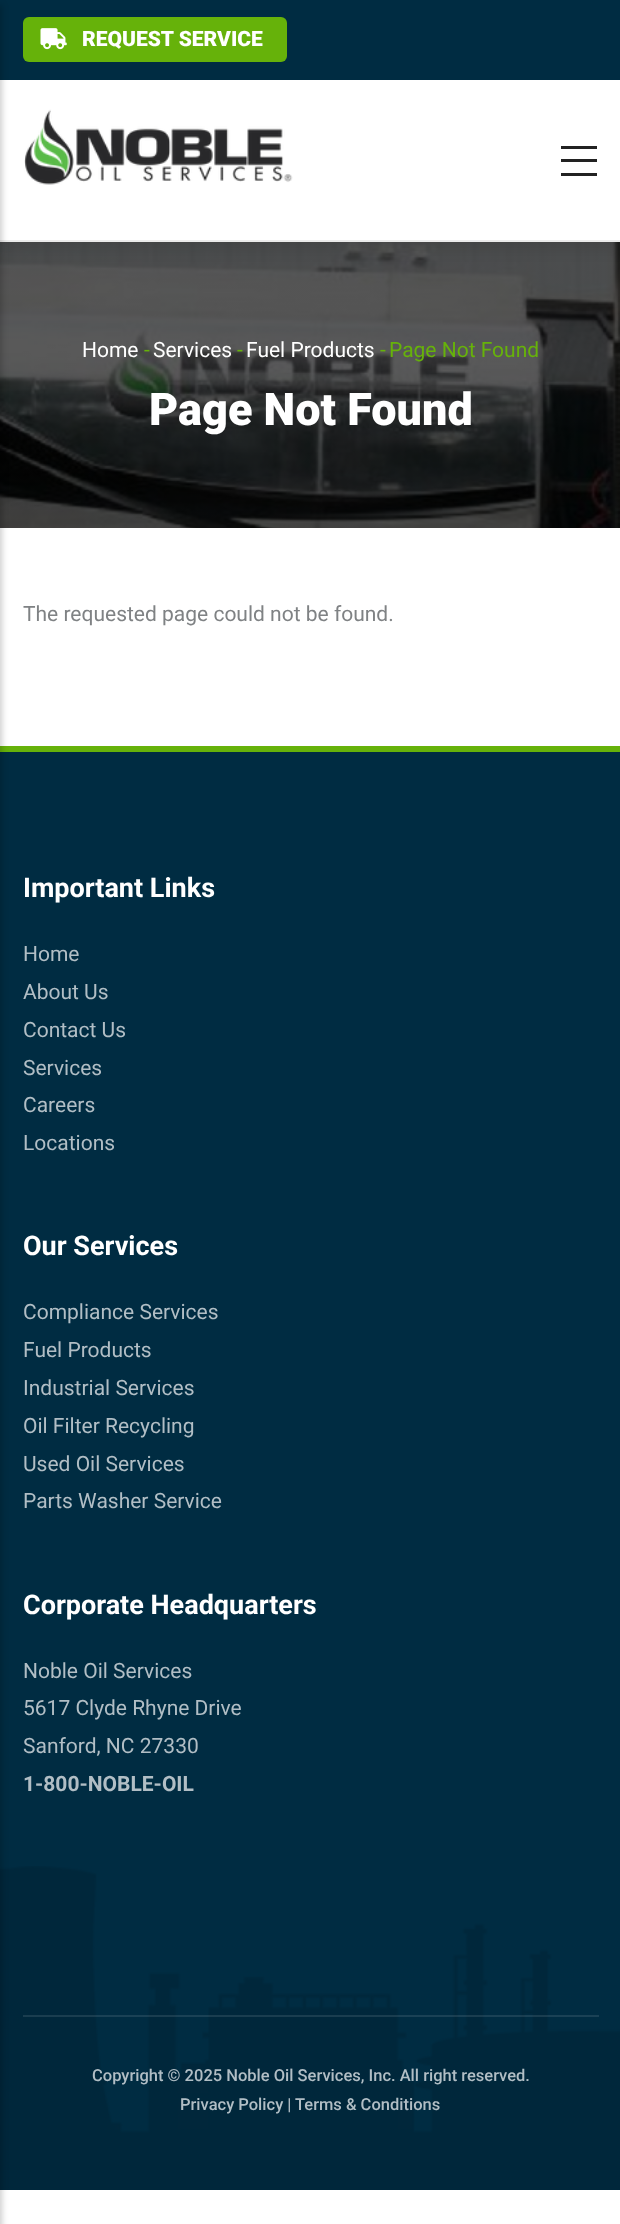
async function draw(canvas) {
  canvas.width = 620
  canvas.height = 2224
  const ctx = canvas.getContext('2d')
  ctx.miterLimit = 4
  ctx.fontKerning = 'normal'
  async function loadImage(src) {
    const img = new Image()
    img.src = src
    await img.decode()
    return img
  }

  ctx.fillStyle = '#fff'
  ctx.fillRect(0, 0, 620, 2224)
  ctx.drawImage(await loadImage('image2.png'), 0, 242, 620, 286)
  ctx.fillStyle = '#0000001a'
  ctx.filter = 'blur(7.5px)'
  ctx.beginPath()
  ctx.rect(-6, -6, 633, 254)
  ctx.fill()
  ctx.filter = 'none'
  ctx.fillStyle = '#fff'
  ctx.fillRect(0, 80, 620, 160)
  ctx.fillStyle = '#ebebeb'
  ctx.fillRect(0, 240, 620, 2)
  ctx.fillStyle = '#002c42'
  ctx.fillRect(0, 0, 620, 80)
  ctx.fillRect(0, 752, 620, 1438)
  ctx.drawImage(await loadImage('image3.png'), 0, 1866, 620, 324)
  ctx.fillStyle = '#66b20a'
  ctx.fillRect(0, 746, 620, 6)
  ctx.fillStyle = '#00000033'
  ctx.filter = 'blur(3px)'
  ctx.beginPath()
  ctx.rect(-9, 5, 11, 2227)
  ctx.fill()
  ctx.filter = 'none'
  ctx.fillStyle = '#222'
  ctx.fillRect(561, 146, 36, 3)
  ctx.fillRect(561, 159, 36, 3)
  ctx.fillRect(561, 173, 36, 3)
  ctx.drawImage(await loadImage('image0.png'), 24, 109, 269, 76)
  ctx.fillStyle = '#66b20a'
  ctx.beginPath()
  ctx.roundRect(23, 17, 264, 45, 6)
  ctx.fill()
  ctx.drawImage(await loadImage('image1.png'), 40, 28, 27, 22)
  ctx.font = '900 21px Roboto'
  ctx.fillStyle = '#fff'
  ctx.fillText('REQUEST SERVICE', 82, 46)
  ctx.font = '21px Roboto'
  ctx.fillText('Home', 82, 357)
  ctx.fillStyle = '#66b20a'
  ctx.fillText('-', 144, 357)
  ctx.fillStyle = '#fff'
  ctx.fillText('Services', 153, 357)
  ctx.fillStyle = '#66b20a'
  ctx.fillText('-', 237, 357)
  ctx.fillStyle = '#fff'
  ctx.fillText('Fuel Products', 246, 357)
  ctx.fillStyle = '#66b20a'
  ctx.fillText('-', 380, 357)
  ctx.fillText('Page Not Found', 389, 357)
  ctx.font = '900 45px Roboto'
  ctx.fillStyle = '#fff'
  ctx.fillText('Page Not Found', 149, 425)
  ctx.font = '21px Roboto'
  ctx.fillStyle = '#7f8284'
  ctx.fillText('The requested page could not be found.', 23, 621)
  ctx.font = 'bold 27px Roboto'
  ctx.fillStyle = '#fff'
  ctx.fillText('Important Links', 23, 897)
  ctx.font = '21px Roboto'
  ctx.fillStyle = '#b1bec5'
  ctx.fillText('Home', 23, 961)
  ctx.fillText('About Us', 23, 999)
  ctx.fillText('Contact Us', 23, 1037)
  ctx.fillText('Services', 23, 1075)
  ctx.fillText('Careers', 23, 1112)
  ctx.fillText('Locations', 23, 1150)
  ctx.font = 'bold 27px Roboto'
  ctx.fillStyle = '#fff'
  ctx.fillText('Our Services', 23, 1255)
  ctx.font = '21px Roboto'
  ctx.fillStyle = '#b1bec5'
  ctx.fillText('Compliance Services', 23, 1319)
  ctx.fillText('Fuel Products', 23, 1357)
  ctx.fillText('Industrial Services', 23, 1395)
  ctx.fillText('Oil Filter Recycling', 23, 1433)
  ctx.fillText('Used Oil Services', 23, 1471)
  ctx.fillText('Parts Washer Service', 23, 1508)
  ctx.font = 'bold 27px Roboto'
  ctx.fillStyle = '#fff'
  ctx.fillText('Corporate Headquarters', 23, 1614)
  ctx.font = '21px Roboto'
  ctx.fillStyle = '#b1bec5'
  ctx.fillText('Noble Oil Services', 23, 1678)
  ctx.fillText('5617 Clyde Rhyne Drive', 23, 1715)
  ctx.fillText('Sanford, NC 27330', 23, 1753)
  ctx.font = 'bold 21px Roboto'
  ctx.fillText('1-800-NOBLE-OIL', 23, 1791)
  ctx.fillStyle = '#ffffff1a'
  ctx.fillRect(23, 2015, 576, 2)
  ctx.font = '500 16.5px Roboto'
  ctx.fillStyle = '#b1bec5'
  ctx.fillText('Copyright © 2025 Noble Oil Services, Inc. All right reserved.', 92, 2081)
  ctx.fillText('Privacy Policy |', 180, 2110)
  ctx.fillText('Terms & Conditions', 295, 2110)
}

draw(document.querySelector('canvas'))
